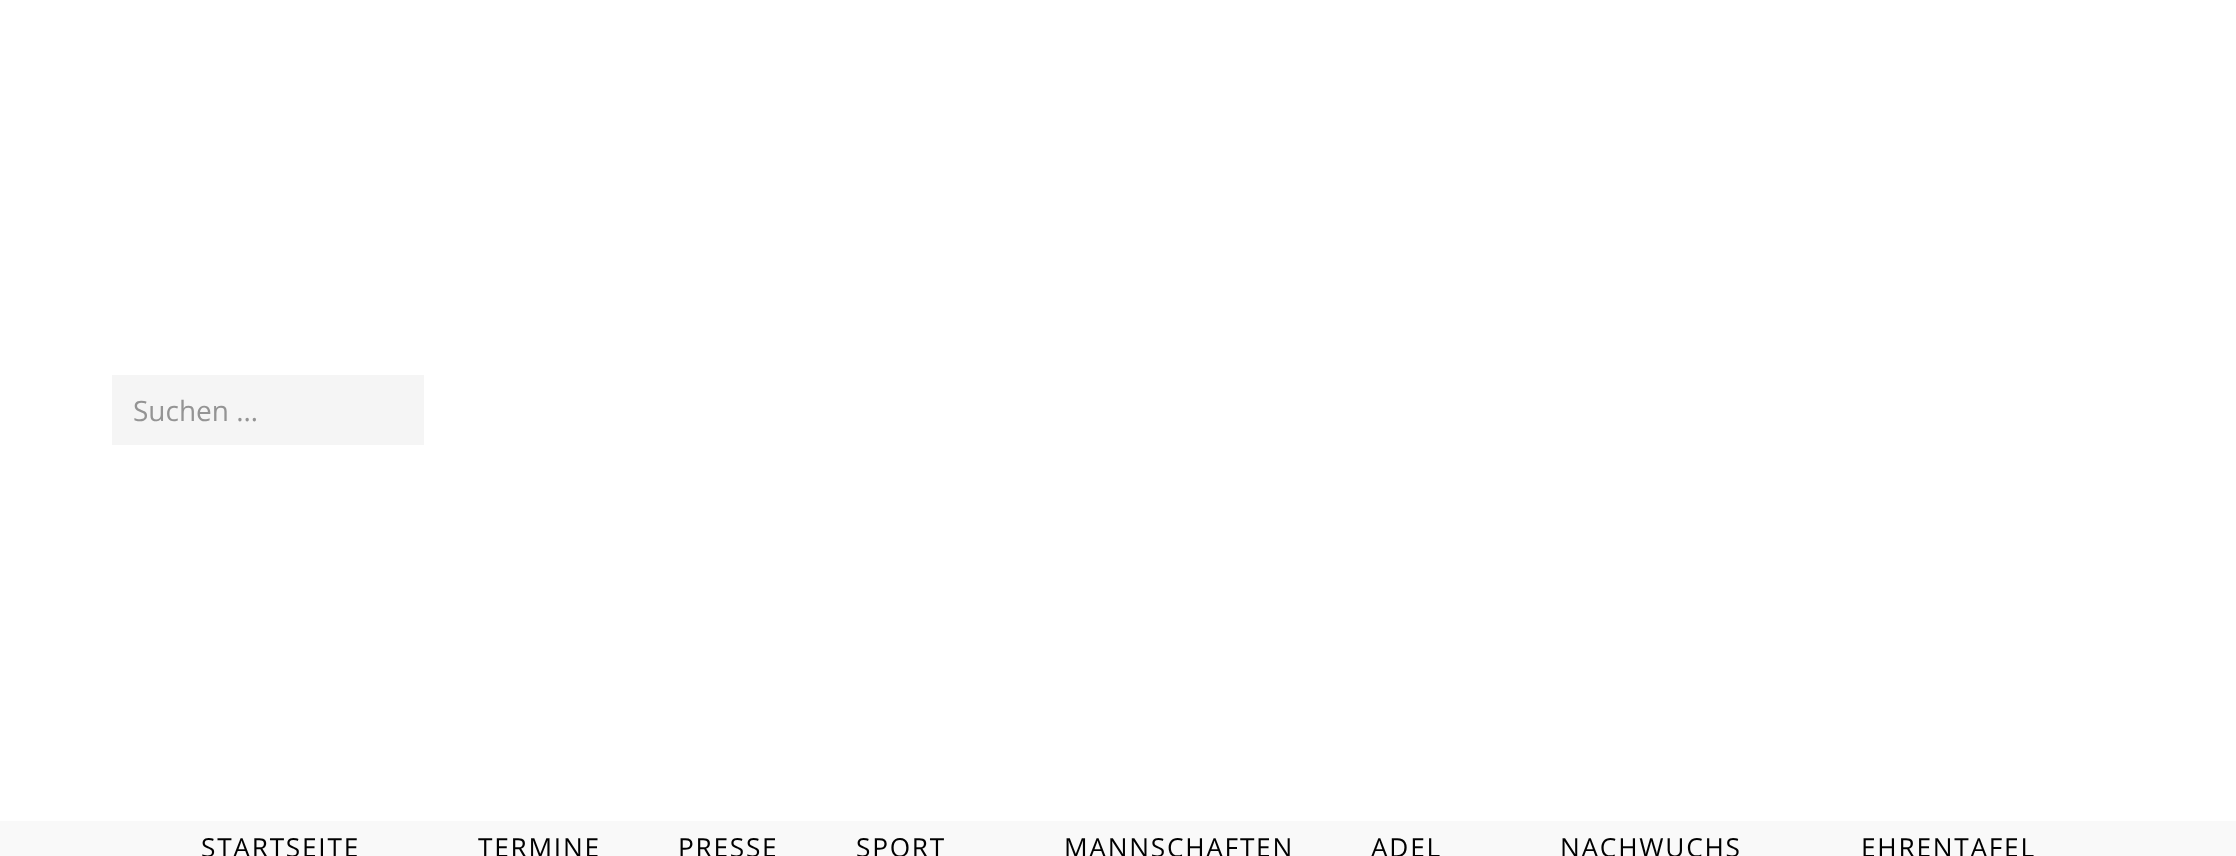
async function draw(canvas) {
  canvas.width = 2236
  canvas.height = 856
  const ctx = canvas.getContext('2d')
  ctx.miterLimit = 4
  ctx.fontKerning = 'normal'

  ctx.fillStyle = '#fff'
  ctx.fillRect(0, 0, 2236, 856)
  ctx.fillStyle = '#f5f5f5'
  ctx.fillRect(112, 375, 312, 70)
  ctx.font = '28px Open Sans'
  ctx.fillStyle = '#949494'
  ctx.fillText('Suchen …', 133, 421)
  ctx.fillStyle = '#f9f9f9'
  ctx.fillRect(0, 821, 2236, 35)
  ctx.letterSpacing = '1.75px'
  ctx.font = '26.25px Open Sans'
  ctx.fillStyle = '#000'
  ctx.fillText('STARTSEITE', 201, 857)
  ctx.fillText('TERMINE', 478, 857)
  ctx.fillText('PRESSE', 678, 857)
  ctx.fillText('SPORT', 856, 857)
  ctx.fillText('MANNSCHAFTEN', 1064, 857)
  ctx.fillText('ADEL', 1371, 857)
  ctx.fillText('NACHWUCHS', 1560, 857)
  ctx.fillText('EHRENTAFEL', 1861, 857)
}

draw(document.querySelector('canvas'))
